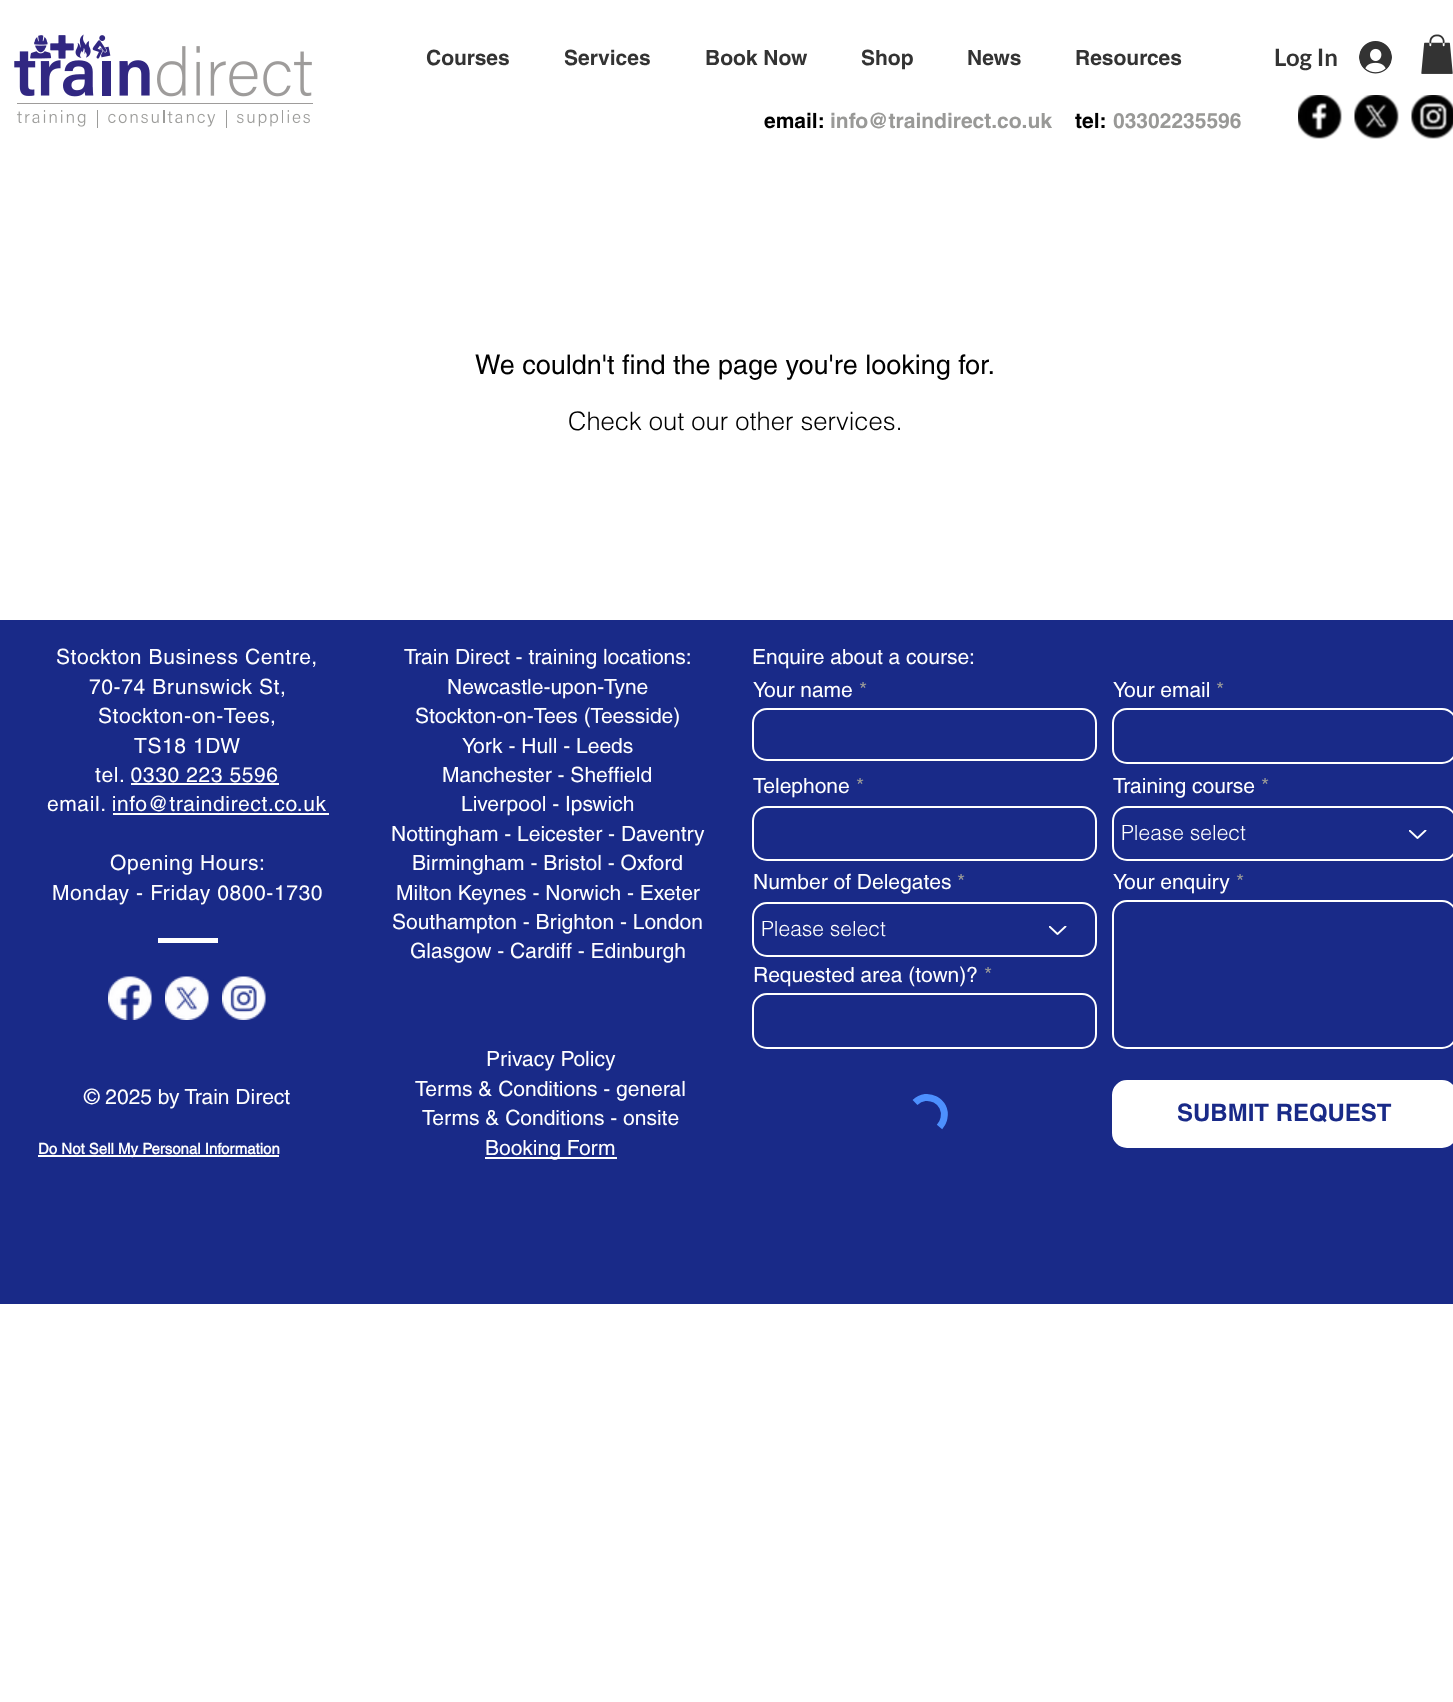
async function draw(canvas) {
  canvas.width = 1453
  canvas.height = 1702
  const ctx = canvas.getContext('2d')
  ctx.miterLimit = 4
  ctx.fontKerning = 'normal'
  async function loadImage(src) {
    const img = new Image()
    img.src = src
    await img.decode()
    return img
  }

  ctx.fillStyle = '#fff'
  ctx.fillRect(0, 0, 1453, 1702)
  ctx.drawImage(await loadImage('image0.png'), 14, 34, 299, 94)
  ctx.font = 'bold 21px helvetica'
  ctx.fillStyle = '#333'
  ctx.fillText('Courses', 426, 65)
  ctx.fillText('Services', 564, 65)
  ctx.fillText('Book Now', 705, 65)
  ctx.fillText('Shop', 861, 65)
  ctx.fillText('News', 967, 65)
  ctx.fillText('Resources', 1075, 65)
  ctx.font = 'bold 24px Lato'
  ctx.fillText('Log In', 1274, 66)
  ctx.drawImage(await loadImage('image1.png'), 1359, 41, 33, 33)
  ctx.drawImage(await loadImage('image2.png'), 1421, 34, 32, 40)
  ctx.font = 'bold 21px helvetica'
  ctx.fillStyle = '#000'
  ctx.fillText('email:', 764, 128)
  ctx.fillStyle = '#999997'
  ctx.fillText('info@traindirect.co.uk', 830, 128)
  ctx.fillStyle = '#000'
  ctx.fillText('tel:', 1075, 128)
  ctx.fillStyle = '#999997'
  ctx.fillText('03302235596', 1113, 128)
  ctx.drawImage(await loadImage('image3.png'), 1298, 95, 44, 44)
  ctx.drawImage(await loadImage('image4.png'), 1354, 95, 45, 44)
  ctx.drawImage(await loadImage('image5.png'), 1411, 95, 42, 44)
  ctx.font = '27px helvetica'
  ctx.fillStyle = '#000'
  ctx.fillText('We couldn\'t find the page you\'re looking for.', 475, 374)
  ctx.font = '300 25.5px helvetica'
  ctx.fillText('Check out our other services.', 568, 430)
  ctx.fillStyle = '#192a88'
  ctx.fillRect(0, 620, 1453, 684)
  ctx.letterSpacing = '0.6px'
  ctx.font = '21px helvetica'
  ctx.fillStyle = '#fff'
  ctx.fillText('Stockton Business Centre,', 56, 664)
  ctx.fillText('70-74 Brunswick St,', 89, 694)
  ctx.fillText('Stockton-on-Tees,', 98, 723)
  ctx.fillText('TS18 1DW', 134, 753)
  ctx.fillText('tel. 0330 223 5596', 95, 782)
  ctx.fillRect(131, 783, 148, 2)
  ctx.fillText('email. info@traindirect.co.uk', 47, 811)
  ctx.fillRect(113, 813, 216, 2)
  ctx.fillText('Opening Hours:', 110, 870)
  ctx.fillText('Monday - Friday 0800-1730', 52, 900)
  ctx.fillRect(158, 938, 60, 5)
  ctx.drawImage(await loadImage('image6.png'), 108, 976, 44, 44)
  ctx.drawImage(await loadImage('image7.png'), 165, 976, 44, 44)
  ctx.drawImage(await loadImage('image8.png'), 222, 976, 44, 44)
  ctx.letterSpacing = '0px'
  ctx.fillText('© 2025 by Train Direct', 84, 1104)
  ctx.fillRect(38, 1155, 241, 2)
  ctx.font = 'bold 15px "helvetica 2"'
  ctx.fillText('Do Not Sell My Personal Information', 38, 1154)
  ctx.font = '21px helvetica'
  ctx.fillText('Train Direct - training locations:', 404, 664)
  ctx.fillText('Newcastle-upon-Tyne', 447, 694)
  ctx.fillText('Stockton-on-Tees (Teesside)', 415, 723)
  ctx.fillText('York - Hull - Leeds', 462, 753)
  ctx.fillText('Manchester - Sheffield', 442, 782)
  ctx.fillText('Liverpool - Ipswich', 461, 811)
  ctx.fillText('Nottingham - Leicester - Daventry', 391, 841)
  ctx.fillText('Birmingham - Bristol - Oxford', 412, 870)
  ctx.fillText('Milton Keynes - Norwich - Exeter', 396, 900)
  ctx.fillText('Southampton - Brighton - London', 392, 929)
  ctx.fillText('Glasgow - Cardiff - Edinburgh', 410, 958)
  ctx.fillText('Enquire about a course:', 752, 664)
  ctx.fillText('Your name', 753, 697)
  ctx.fillStyle = '#999997'
  ctx.fillText('*', 859, 697)
  ctx.beginPath()
  ctx.roundRect(753, 709, 343, 51, 14)
  ctx.strokeStyle = '#fff'
  ctx.lineWidth = 2
  ctx.stroke()
  ctx.fillStyle = '#fff'
  ctx.fillText('Your email', 1113, 697)
  ctx.fillStyle = '#999997'
  ctx.fillText('*', 1216, 697)
  ctx.beginPath()
  ctx.roundRect(1113, 709, 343, 54, 14)
  ctx.stroke()
  ctx.fillStyle = '#fff'
  ctx.fillText('Telephone', 753, 793)
  ctx.fillStyle = '#999997'
  ctx.fillText('*', 856, 793)
  ctx.beginPath()
  ctx.roundRect(753, 807, 343, 53, 14)
  ctx.stroke()
  ctx.fillStyle = '#fff'
  ctx.fillText('Training course', 1113, 793)
  ctx.fillStyle = '#999997'
  ctx.fillText('*', 1261, 793)
  ctx.beginPath()
  ctx.roundRect(1113, 807, 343, 53, 14)
  ctx.stroke()
  ctx.font = '300 21px helvetica'
  ctx.fillStyle = '#fff'
  ctx.fillText('Please select', 1121, 840)
  ctx.drawImage(await loadImage('image9.png'), 1409, 830, 18, 9)
  ctx.font = '21px helvetica'
  ctx.fillText('Number of Delegates', 753, 889)
  ctx.fillStyle = '#999997'
  ctx.fillText('*', 957, 889)
  ctx.beginPath()
  ctx.roundRect(753, 903, 343, 53, 14)
  ctx.stroke()
  ctx.font = '300 21px helvetica'
  ctx.fillStyle = '#fff'
  ctx.fillText('Please select', 761, 936)
  ctx.drawImage(await loadImage('image9.png'), 1049, 926, 18, 9)
  ctx.font = '21px helvetica'
  ctx.fillText('Your enquiry', 1113, 889)
  ctx.fillStyle = '#999997'
  ctx.fillText('*', 1236, 889)
  ctx.beginPath()
  ctx.roundRect(1113, 901, 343, 147, 14)
  ctx.stroke()
  ctx.fillStyle = '#fff'
  ctx.fillText('Requested area (town)?', 753, 982)
  ctx.fillStyle = '#999997'
  ctx.fillText('*', 984, 982)
  ctx.beginPath()
  ctx.roundRect(753, 994, 343, 54, 14)
  ctx.stroke()
  ctx.fillStyle = '#fff'
  ctx.fillText('Privacy Policy', 486, 1066)
  ctx.fillText('Terms & Conditions - general', 415, 1096)
  ctx.fillText('Terms & Conditions - onsite', 422, 1125)
  ctx.fillRect(485, 1157, 132, 2)
  ctx.fillText('Booking Form', 485, 1155)
  ctx.beginPath()
  ctx.moveTo(915, 1102.5)
  ctx.bezierCurveTo(927, 1090.5, 947.5, 1101.5, 944, 1118)
  ctx.bezierCurveTo(943.5, 1121.5, 941.5, 1124.5, 939.5, 1127)
  ctx.strokeStyle = '#4d90fe'
  ctx.lineWidth = 6.9
  ctx.stroke()
  ctx.beginPath()
  ctx.roundRect(1113.5, 1081.5, 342, 65, 13.5)
  ctx.fill()
  ctx.strokeStyle = '#fff'
  ctx.lineWidth = 3
  ctx.stroke()
  ctx.font = 'bold 24px helvetica'
  ctx.fillStyle = '#192a88'
  ctx.fillText('SUBMIT REQUEST', 1177, 1121)
}

draw(document.querySelector('canvas'))
